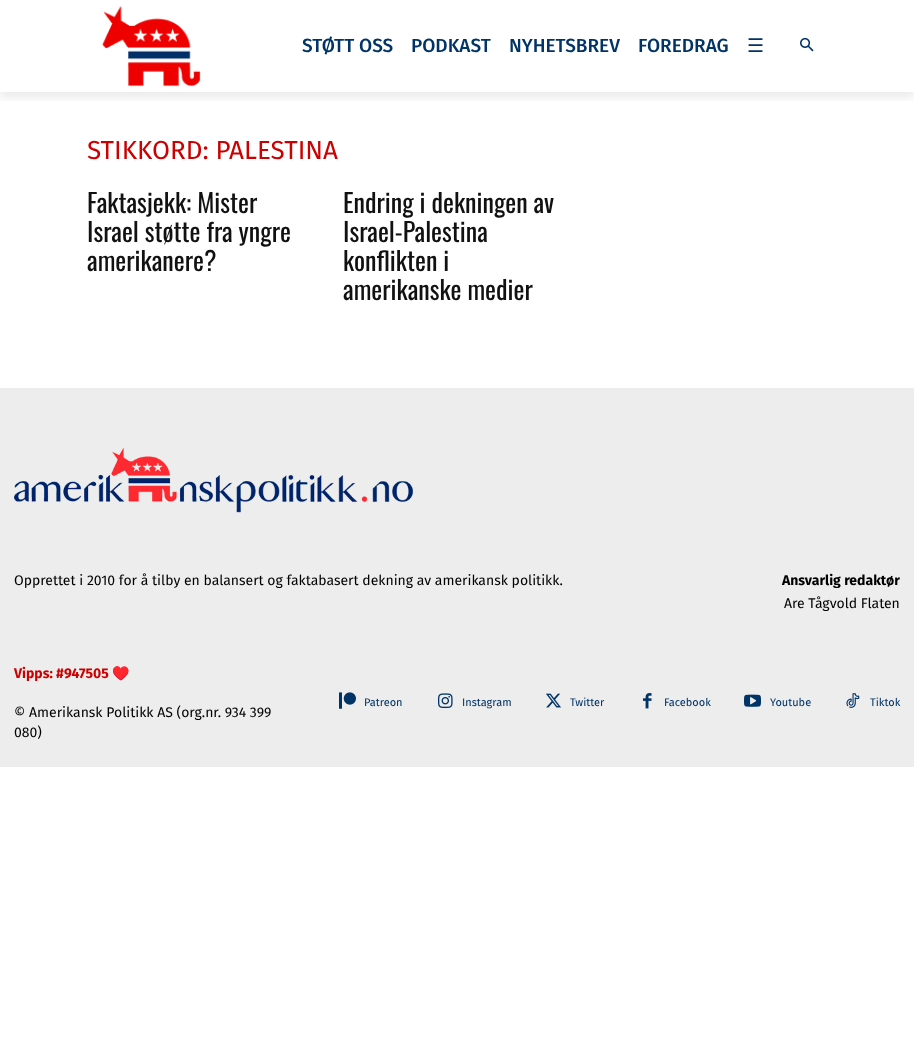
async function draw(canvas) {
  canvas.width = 914
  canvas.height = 1048
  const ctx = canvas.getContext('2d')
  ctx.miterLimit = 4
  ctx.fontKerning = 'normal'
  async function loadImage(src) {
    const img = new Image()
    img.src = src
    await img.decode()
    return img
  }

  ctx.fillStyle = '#fff'
  ctx.fillRect(0, 0, 914, 1048)
  ctx.drawImage(await loadImage('image0.png'), 102, 6, 99, 81)
  ctx.save()
  ctx.beginPath()
  ctx.rect(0, 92, 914, 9)
  ctx.clip()
  ctx.fillStyle = '#00000014'
  ctx.filter = 'blur(4px)'
  ctx.beginPath()
  ctx.rect(0, 6, 914, 92)
  ctx.fill()
  ctx.filter = 'none'
  ctx.restore()
  ctx.font = '500 19px Fira Sans'
  ctx.fillStyle = '#036'
  ctx.fillText('STØTT OSS', 302, 52)
  ctx.fillText('PODKAST', 411, 52)
  ctx.fillText('NYHETSBREV', 509, 52)
  ctx.fillText('FOREDRAG', 638, 52)
  ctx.font = '19px DejaVu Sans'
  ctx.fillText('☰', 747, 52)
  ctx.drawImage(await loadImage('image1.png'), 800, 37, 14, 15)
  ctx.font = '26px Fira Sans'
  ctx.fillStyle = '#c00'
  ctx.fillText('STIKKORD: PALESTINA', 87, 159)
  ctx.font = '26px Oswald'
  ctx.fillStyle = '#111'
  ctx.fillText('Faktasjekk: Mister', 87, 213)
  ctx.fillText('Israel støtte fra yngre', 87, 242)
  ctx.fillText('amerikanere?', 87, 271)
  ctx.fillText('Endring i dekningen av', 343, 213)
  ctx.fillText('Israel-Palestina', 343, 242)
  ctx.fillText('konflikten i', 343, 271)
  ctx.fillText('amerikanske medier', 343, 300)
  ctx.fillStyle = '#ededed'
  ctx.fillRect(0, 388, 914, 379)
  ctx.drawImage(await loadImage('image2.png'), 14, 448, 400, 65)
  ctx.font = '14px Fira Sans'
  ctx.fillStyle = '#000'
  ctx.fillText('Opprettet i 2010 for å tilby en balansert og faktabasert dekning av amerikansk politikk.', 14, 585)
  ctx.font = 'bold 14px Fira Sans'
  ctx.fillText('Ansvarlig redaktør', 782, 585)
  ctx.font = '14px Fira Sans'
  ctx.fillText('Are Tågvold Flaten', 784, 608)
  ctx.font = 'bold 14px Fira Sans'
  ctx.fillStyle = '#c00'
  ctx.fillText('Vipps: #947505', 14, 678)
  ctx.font = 'bold 14px Noto Color Emoji'
  ctx.fillText('♥️', 112, 678)
  ctx.font = '14px Fira Sans'
  ctx.fillStyle = '#000'
  ctx.fillText('© Amerikansk Politikk AS (org.nr. 934 399', 14, 717)
  ctx.fillText('080)', 14, 737)
  ctx.drawImage(await loadImage('image3.png'), 339, 692, 17, 17)
  ctx.font = '11px Fira Sans'
  ctx.fillStyle = '#036'
  ctx.fillText('Patreon', 364, 706)
  ctx.drawImage(await loadImage('image4.png'), 438, 693, 15, 15)
  ctx.fillText('Instagram', 462, 706)
  ctx.drawImage(await loadImage('image5.png'), 546, 693, 15, 15)
  ctx.fillText('Twitter', 570, 706)
  ctx.drawImage(await loadImage('image6.png'), 643, 693, 9, 16)
  ctx.fillText('Facebook', 664, 706)
  ctx.drawImage(await loadImage('image7.png'), 744, 694, 17, 13)
  ctx.fillText('Youtube', 770, 706)
  ctx.drawImage(await loadImage('image8.png'), 846, 693, 14, 15)
  ctx.fillText('Tiktok', 870, 706)
}

draw(document.querySelector('canvas'))
